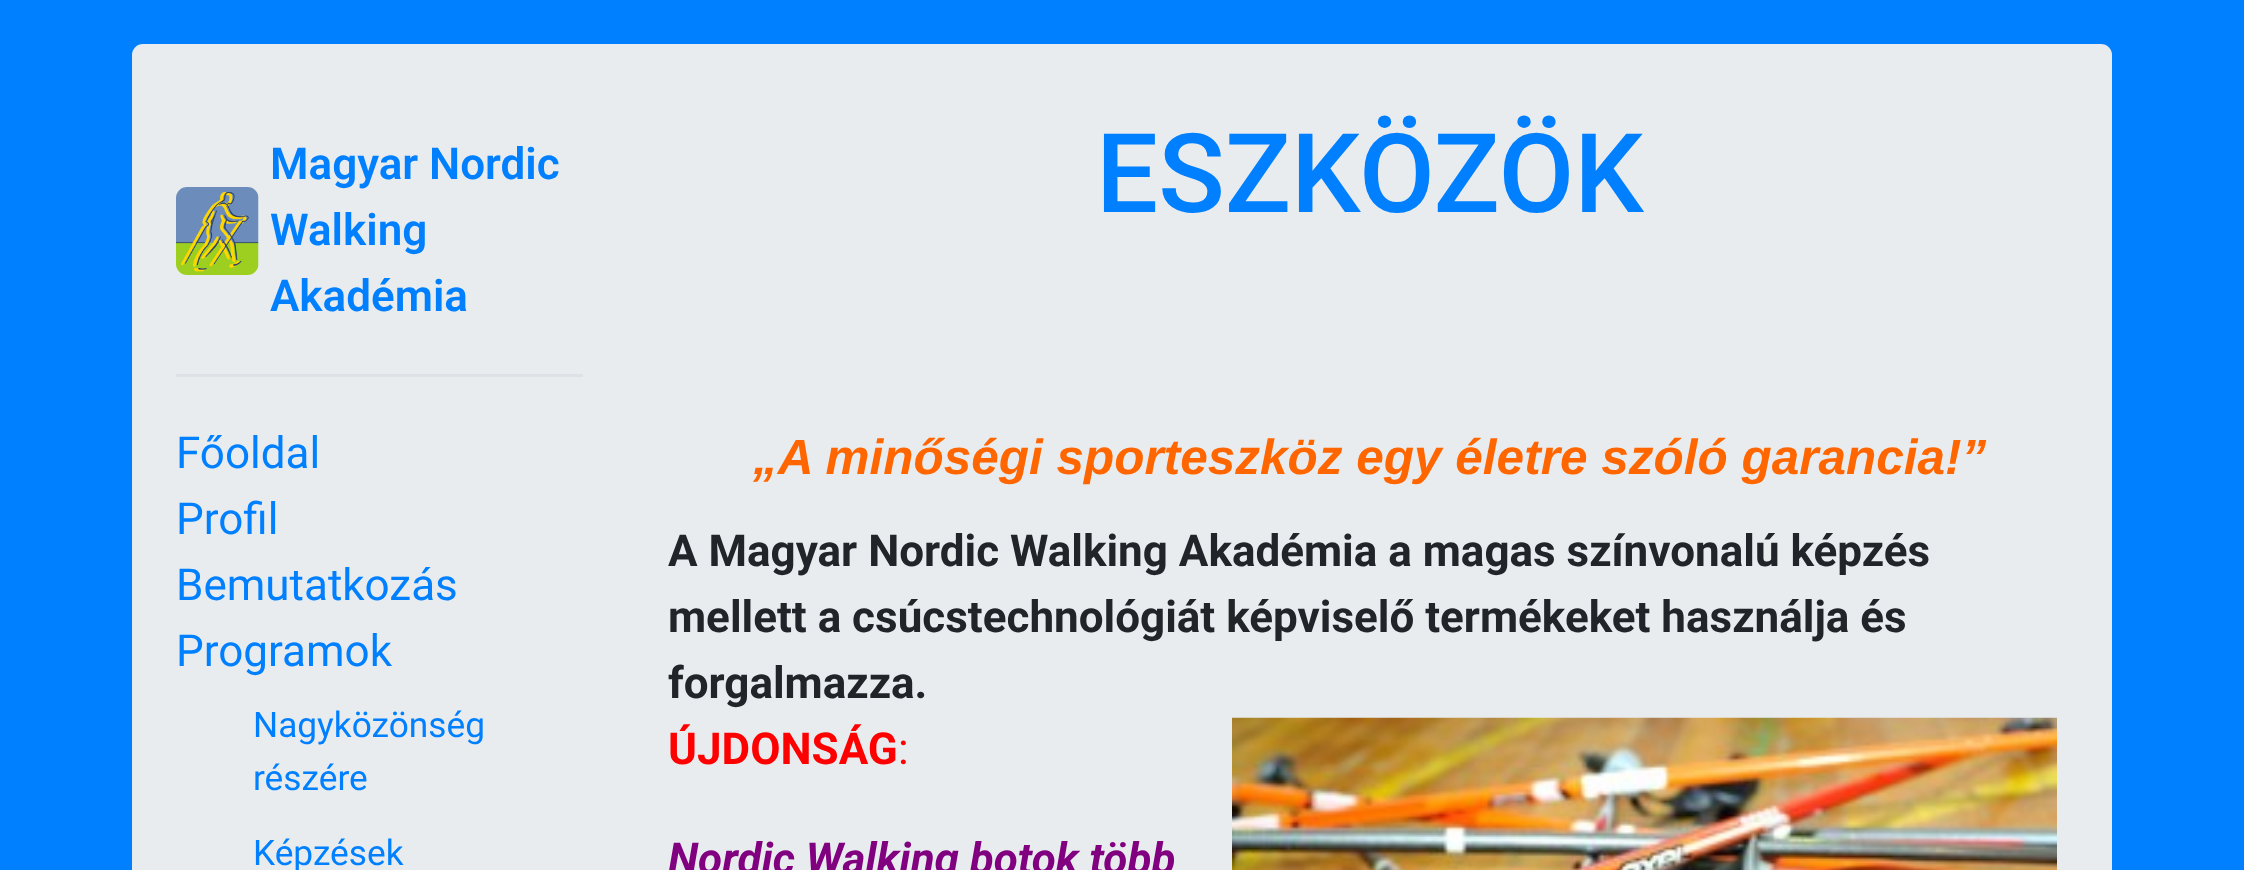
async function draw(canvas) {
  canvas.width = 2244
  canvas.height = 870
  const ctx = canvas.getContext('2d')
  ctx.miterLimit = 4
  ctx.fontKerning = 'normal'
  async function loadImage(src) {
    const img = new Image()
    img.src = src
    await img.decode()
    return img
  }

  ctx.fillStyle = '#0080ff'
  ctx.fillRect(0, 0, 2244, 870)
  ctx.fillStyle = '#e9ecef'
  ctx.beginPath()
  ctx.roundRect(132, 44, 1980, 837, 11)
  ctx.fill()
  ctx.fillStyle = '#dee2e6'
  ctx.fillRect(176, 374, 407, 3)
  ctx.drawImage(await loadImage('image0.png'), 176, 187, 83, 88)
  ctx.font = '600 44px Roboto'
  ctx.fillStyle = '#0080ff'
  ctx.fillText('Magyar Nordic', 270, 179)
  ctx.fillText('Walking', 270, 245)
  ctx.fillText('Akadémia', 270, 311)
  ctx.font = '44px Roboto'
  ctx.fillText('Főoldal', 176, 468)
  ctx.fillText('Profil', 176, 534)
  ctx.fillText('Bemutatkozás', 176, 600)
  ctx.fillText('Programok', 176, 666)
  ctx.font = '35.25px Roboto'
  ctx.fillText('Nagyközönség', 253, 737)
  ctx.fillText('részére', 253, 790)
  ctx.fillText('Képzések', 253, 865)
  ctx.font = '500 110px Roboto'
  ctx.fillText('ESZKÖZÖK', 1096, 212)
  ctx.font = 'italic bold 49.5px Liberation Sans'
  ctx.fillStyle = '#f60'
  ctx.fillText('„A minőségi sporteszköz egy életre szóló garancia!”', 753, 474)
  ctx.font = 'bold 44px Roboto'
  ctx.fillStyle = '#212529'
  ctx.fillText('A Magyar Nordic Walking Akadémia a magas színvonalú képzés', 668, 566)
  ctx.fillText('mellett a csúcstechnológiát képviselő termékeket használja és', 668, 632)
  ctx.fillText('forgalmazza.', 668, 698)
  ctx.fillStyle = '#f00'
  ctx.fillText('ÚJDONSÁG', 668, 764)
  ctx.font = '44px Roboto'
  ctx.fillText(':', 898, 764)
  ctx.drawImage(await loadImage('image1.png'), 1232, 717, 825, 153)
  ctx.font = 'italic bold 44px Roboto'
  ctx.fillStyle = '#800080'
  ctx.fillText('Nordic Walking botok több', 668, 874)
}

draw(document.querySelector('canvas'))
